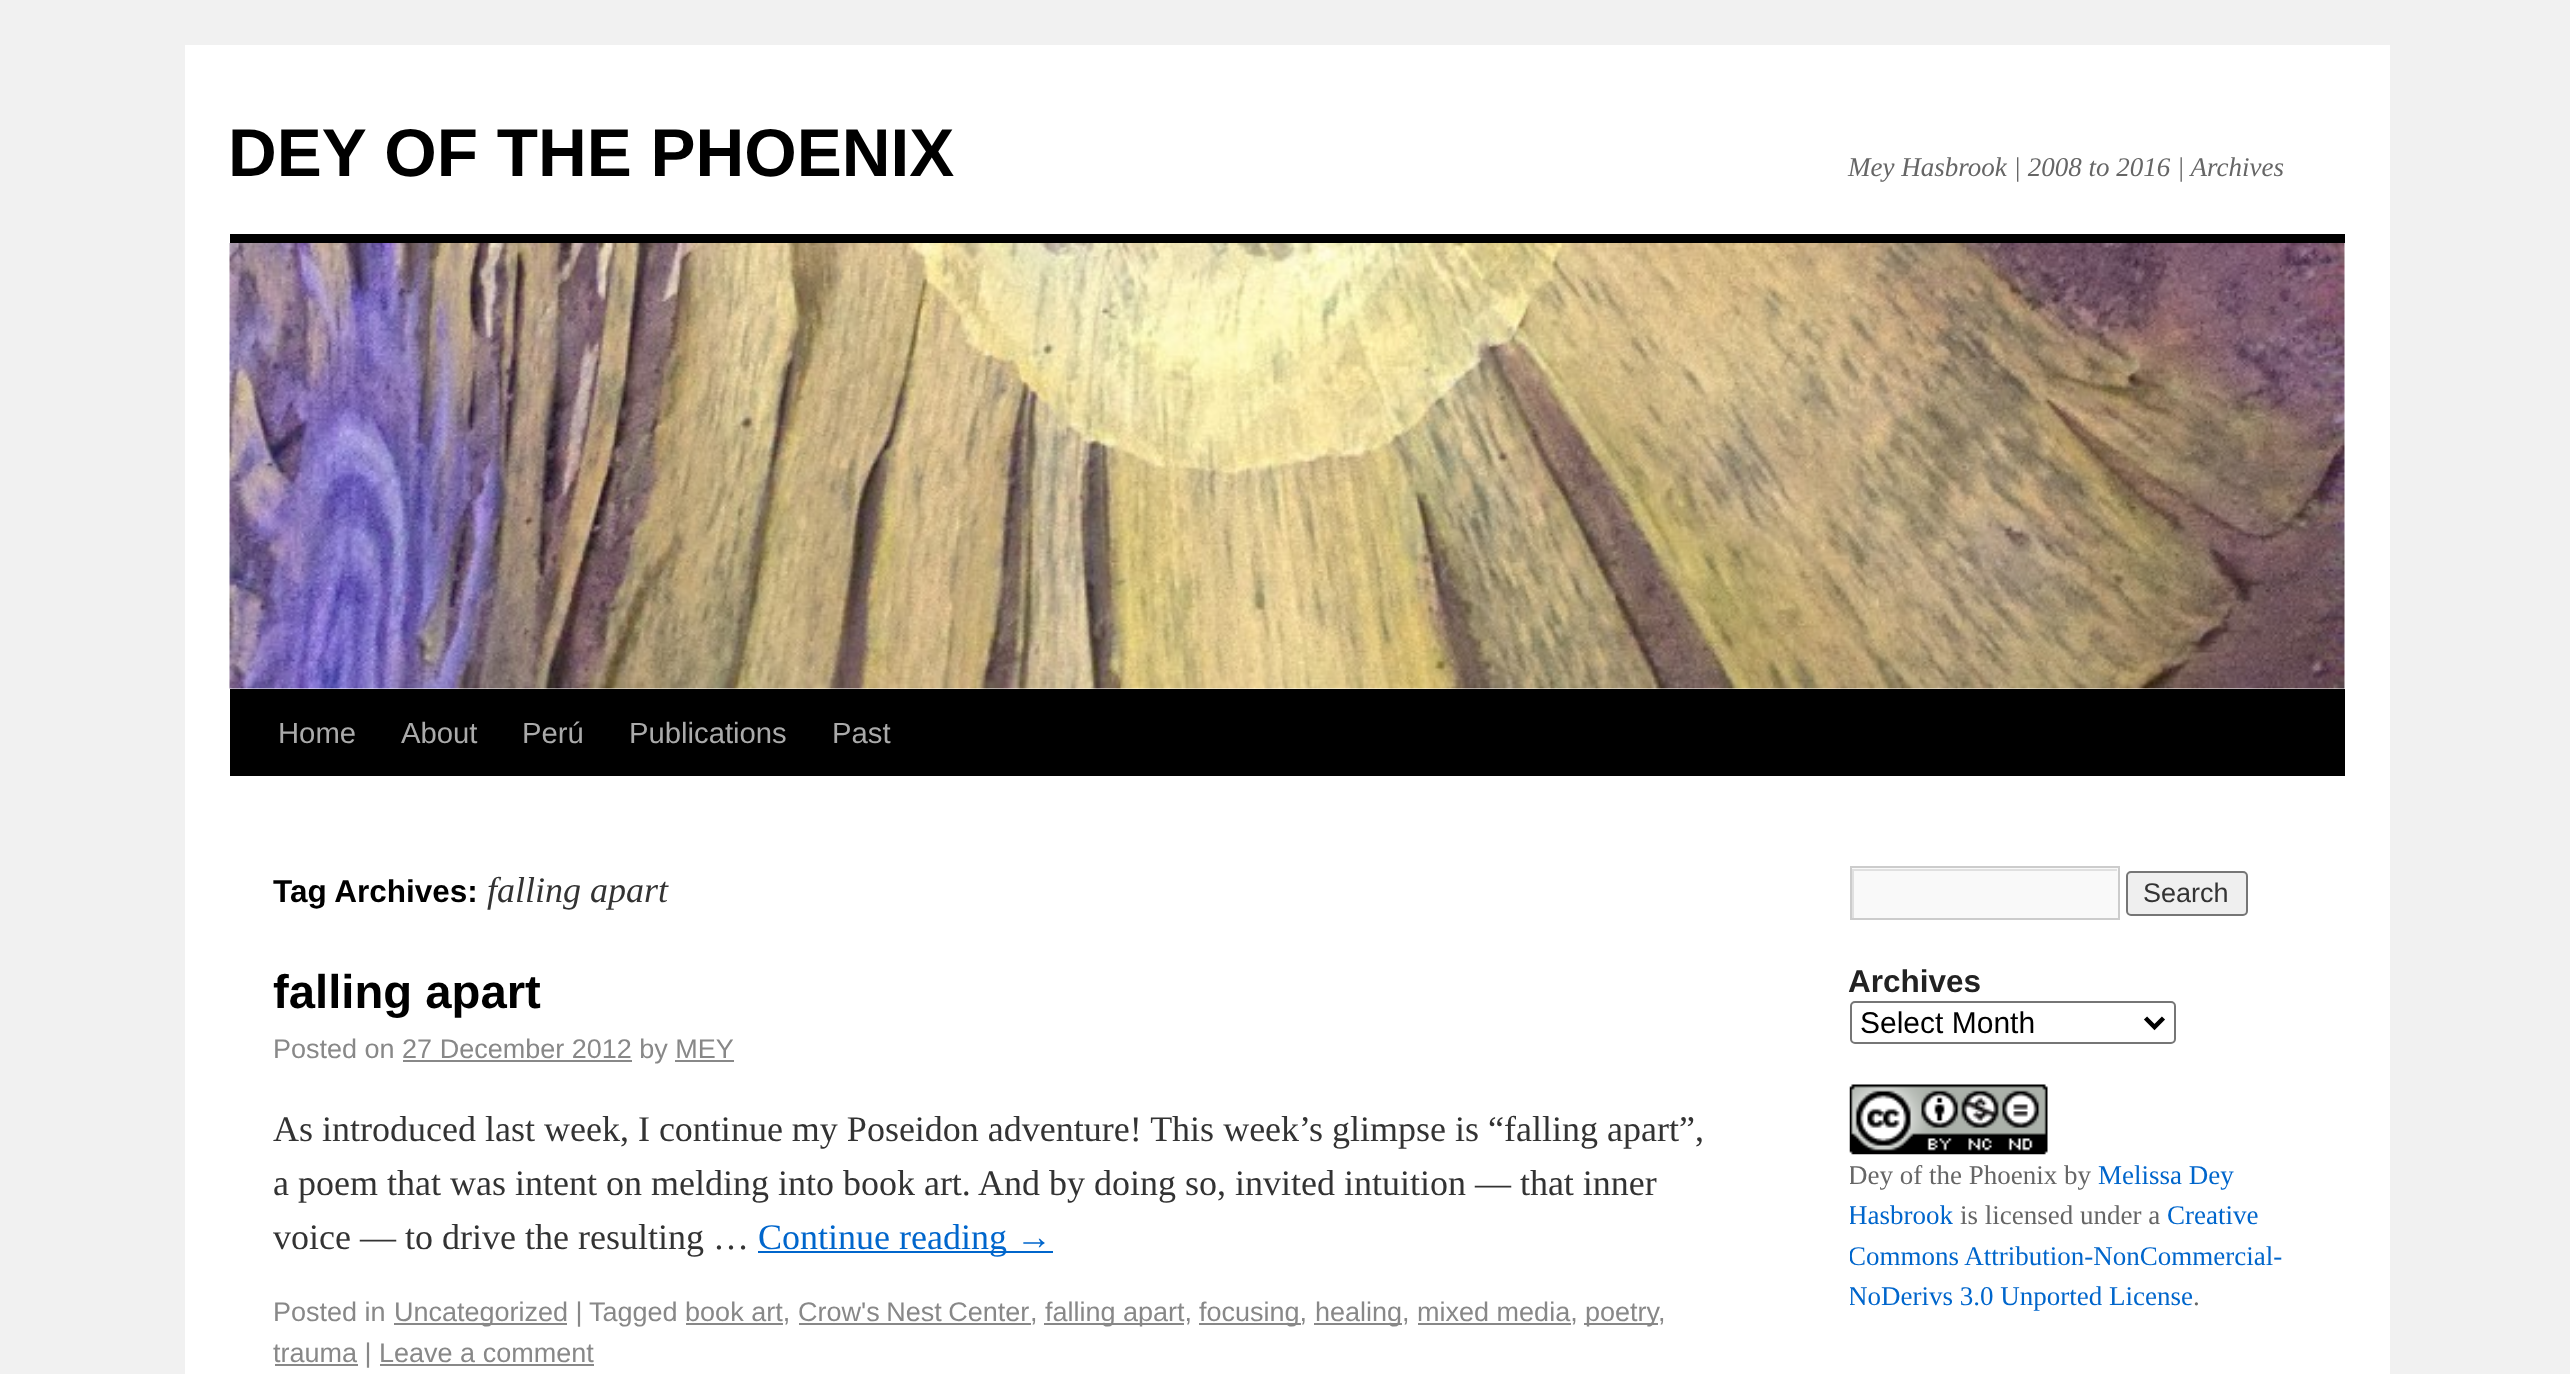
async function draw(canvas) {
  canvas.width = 2570
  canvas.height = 1374
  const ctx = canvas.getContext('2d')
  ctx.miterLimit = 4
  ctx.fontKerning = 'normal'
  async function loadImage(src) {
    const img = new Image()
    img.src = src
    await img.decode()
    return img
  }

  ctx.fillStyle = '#f1f1f1'
  ctx.fillRect(0, 0, 2570, 1374)
  ctx.fillStyle = '#fff'
  ctx.fillRect(185, 45, 2205, 1329)
  ctx.font = 'bold 67.5px Liberation Sans'
  ctx.fillStyle = '#000'
  ctx.fillText('DEY OF THE PHOENIX', 228, 176)
  ctx.font = 'italic 27px Liberation Serif'
  ctx.fillStyle = '#666'
  ctx.fillText('Mey Hasbrook | 2008 to 2016 | Archives', 1848, 176)
  ctx.fillStyle = '#000'
  ctx.fillRect(230, 234, 2115, 9)
  ctx.fillRect(230, 689, 2115, 87)
  ctx.drawImage(await loadImage('image0.png'), 229, 243, 2116, 446)
  ctx.font = '29.25px Liberation Sans'
  ctx.fillStyle = '#aaa'
  ctx.fillText('Home', 278, 743)
  ctx.fillText('About', 401, 743)
  ctx.fillText('Perú', 522, 743)
  ctx.fillText('Publications', 629, 743)
  ctx.fillText('Past', 832, 743)
  ctx.font = 'bold 31.5px Liberation Sans'
  ctx.fillStyle = '#000'
  ctx.fillText('Tag Archives:', 273, 902)
  ctx.font = 'italic 36px Liberation Serif'
  ctx.fillStyle = '#333'
  ctx.fillText('falling apart', 487, 902)
  ctx.font = 'bold 47.25px Liberation Sans'
  ctx.fillStyle = '#000'
  ctx.fillText('falling apart', 273, 1008)
  ctx.font = '27px Liberation Sans'
  ctx.fillStyle = '#888'
  ctx.fillText('Posted on 27 December 2012 by MEY', 273, 1058)
  ctx.fillRect(403, 1060, 229, 2)
  ctx.fillRect(675, 1060, 59, 2)
  ctx.font = '36px Liberation Serif'
  ctx.fillStyle = '#333'
  ctx.fillText('As introduced last week, I continue my Poseidon adventure! This week’s glimpse is “falling apart”,', 273, 1141)
  ctx.fillText('a poem that was intent on melding into book art. And by doing so, invited intuition — that inner', 273, 1195)
  ctx.fillText('voice — to drive the resulting …', 273, 1249)
  ctx.fillStyle = '#06c'
  ctx.fillRect(758, 1251, 295, 2)
  ctx.fillText('Continue reading →', 758, 1249)
  ctx.font = '27px Liberation Sans'
  ctx.fillStyle = '#888'
  ctx.fillText('Posted in', 273, 1321)
  ctx.fillRect(394, 1323, 173, 2)
  ctx.fillText('Uncategorized |', 394, 1321)
  ctx.fillText('Tagged book art,', 589, 1321)
  ctx.fillRect(686, 1323, 97, 2)
  ctx.wordSpacing = '-1px'
  ctx.fillText('Crow\'s Nest Center', 798, 1321)
  ctx.wordSpacing = '0px'
  ctx.fillText(',', 1030, 1321)
  ctx.fillRect(799, 1323, 232, 2)
  ctx.fillRect(1044, 1323, 140, 2)
  ctx.fillText('falling apart,', 1045, 1321)
  ctx.fillRect(1199, 1323, 102, 2)
  ctx.fillText('focusing,', 1199, 1321)
  ctx.fillRect(1314, 1323, 88, 2)
  ctx.fillText('healing, mixed media,', 1315, 1321)
  ctx.fillRect(1418, 1323, 153, 2)
  ctx.fillRect(1584, 1323, 74, 2)
  ctx.fillText('poetry', 1585, 1321)
  ctx.fillText(',', 1658, 1321)
  ctx.fillRect(275, 1364, 83, 2)
  ctx.fillText('trauma | Leave a comment', 273, 1362)
  ctx.fillRect(380, 1364, 214, 2)
  ctx.fillStyle = '#f9f9f9'
  ctx.fillRect(1852, 868, 266, 50)
  ctx.save()
  ctx.beginPath()
  ctx.rect(1852, 869, 265, 49)
  ctx.clip()
  ctx.fillStyle = '#e0e0e0'
  ctx.beginPath()
  ctx.moveTo(1629, 646)
  ctx.lineTo(2340, 646)
  ctx.lineTo(2340, 1141)
  ctx.lineTo(1629, 1141)
  ctx.closePath()
  ctx.moveTo(1854, 871)
  ctx.lineTo(2120, 871)
  ctx.lineTo(2120, 920)
  ctx.lineTo(1854, 920)
  ctx.closePath()
  ctx.fill('evenodd')
  ctx.restore()
  ctx.strokeStyle = '#ccc'
  ctx.lineWidth = 2
  ctx.strokeRect(1851, 867, 268, 52)
  ctx.fillStyle = '#efefef'
  ctx.beginPath()
  ctx.roundRect(2127, 872, 120, 43, 4)
  ctx.fill()
  ctx.strokeStyle = '#767676'
  ctx.stroke()
  ctx.fillStyle = '#333'
  ctx.fillText('Search', 2143, 902)
  ctx.font = 'bold 31.5px Liberation Sans'
  ctx.fillStyle = '#222'
  ctx.fillText('Archives', 1848, 992)
  ctx.beginPath()
  ctx.roundRect(1851, 1002, 324, 41, 4)
  ctx.stroke()
  ctx.beginPath()
  ctx.moveTo(2145.5, 1018)
  ctx.lineTo(2154.5, 1027)
  ctx.lineTo(2163.5, 1018)
  ctx.strokeStyle = '#000'
  ctx.lineWidth = 4.5
  ctx.stroke()
  ctx.font = '30px Liberation Sans'
  ctx.fillStyle = '#000'
  ctx.fillText('Select Month', 1860, 1033)
  ctx.drawImage(await loadImage('image1.png'), 1849, 1084, 199, 71)
  ctx.save()
  ctx.beginPath()
  ctx.rect(1850, 961, 495, 396)
  ctx.clip()
  ctx.font = '27px Liberation Serif'
  ctx.fillStyle = '#666'
  ctx.fillText('Dey of the Phoenix', 1848, 1184)
  ctx.restore()
  ctx.font = '27px Liberation Serif'
  ctx.fillStyle = '#666'
  ctx.fillText('by', 2064, 1184)
  ctx.fillStyle = '#06c'
  ctx.fillText('Melissa Dey', 2098, 1184)
  ctx.save()
  ctx.beginPath()
  ctx.rect(1850, 961, 495, 396)
  ctx.clip()
  ctx.fillText('Hasbrook', 1848, 1224)
  ctx.restore()
  ctx.fillStyle = '#666'
  ctx.fillText('is licensed under a', 1960, 1224)
  ctx.fillStyle = '#06c'
  ctx.fillText('Creative', 2167, 1224)
  ctx.save()
  ctx.beginPath()
  ctx.rect(1850, 961, 495, 396)
  ctx.clip()
  ctx.fillText('Commons Attribution-NonCommercial-', 1848, 1265)
  ctx.fillText('NoDerivs 3.0 Unported License', 1848, 1305)
  ctx.restore()
  ctx.fillStyle = '#666'
  ctx.fillText('.', 2193, 1305)
}

draw(document.querySelector('canvas'))
